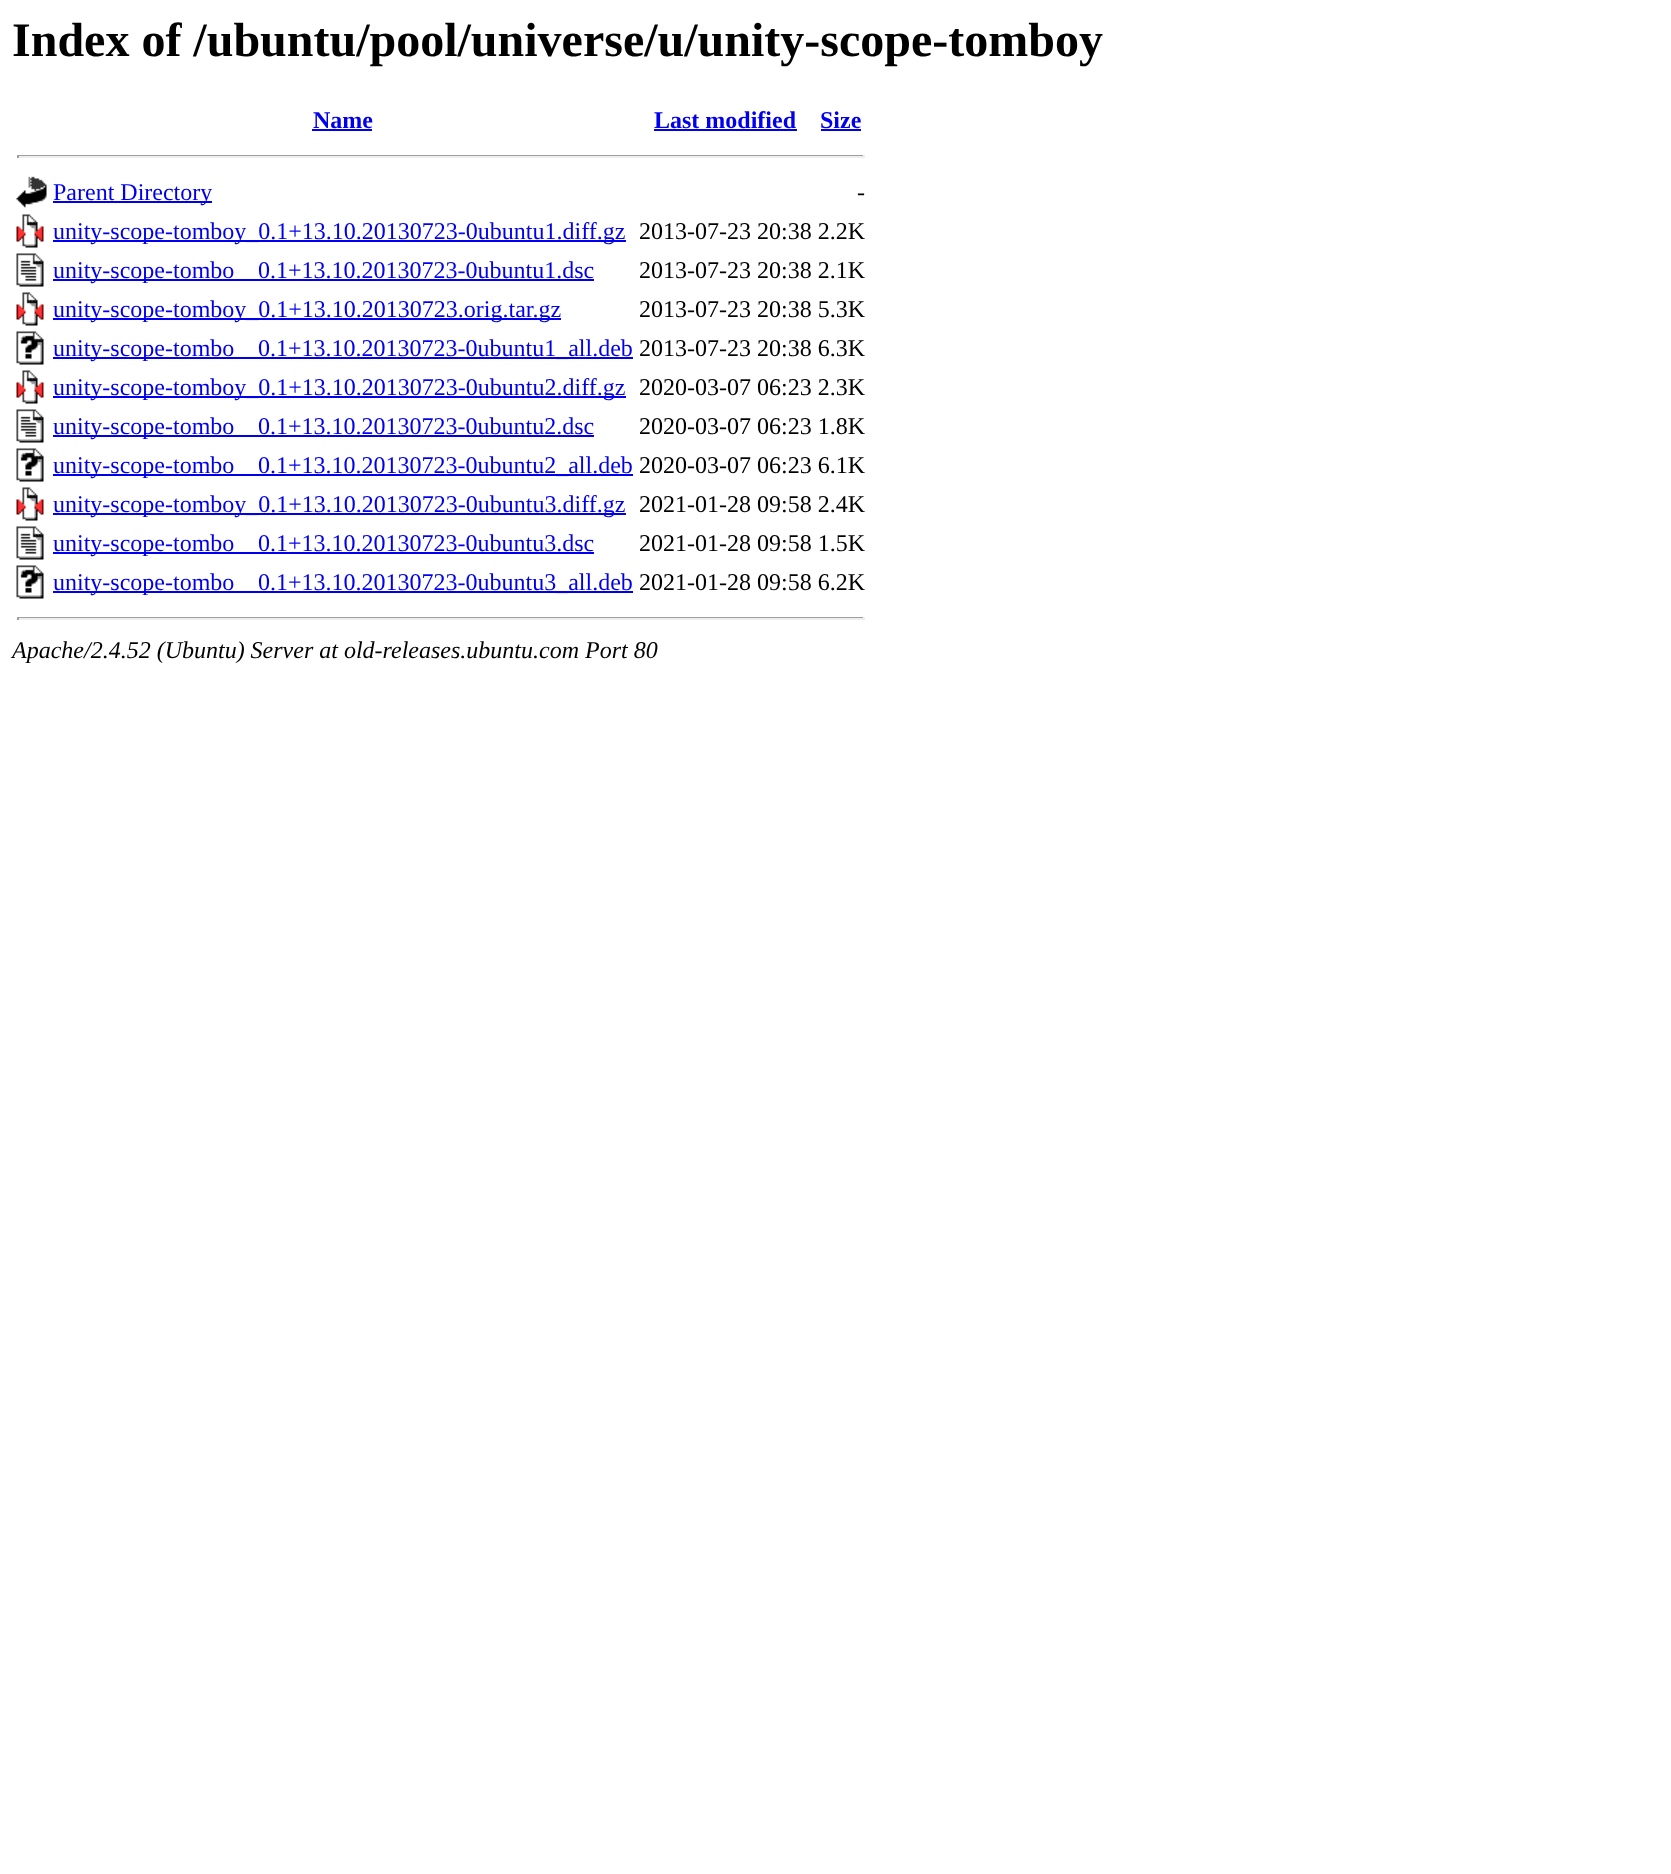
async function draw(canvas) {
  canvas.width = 1671
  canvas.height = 1874
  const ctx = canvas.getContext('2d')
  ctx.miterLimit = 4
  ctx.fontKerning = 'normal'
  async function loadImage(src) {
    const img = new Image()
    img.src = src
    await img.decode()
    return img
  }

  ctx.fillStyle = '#fff'
  ctx.fillRect(0, 0, 1671, 1874)
  ctx.font = 'bold 48px Liberation Serif'
  ctx.fillStyle = '#000'
  ctx.fillText('Index of /ubuntu/pool/universe/u/unity-scope-tomboy', 12, 56)
  ctx.font = 'bold 24px Liberation Serif'
  ctx.fillStyle = '#00e'
  ctx.fillText('Name', 313, 128)
  ctx.fillRect(312, 129, 60, 2)
  ctx.fillText('Last modified', 654, 128)
  ctx.fillRect(654, 129, 143, 2)
  ctx.fillText('Size', 820, 128)
  ctx.fillRect(821, 129, 40, 2)
  ctx.fillStyle = '#9f9f9f'
  ctx.fillRect(17, 155, 847, 1)
  ctx.fillStyle = '#eee'
  ctx.fillRect(863, 155, 2, 3)
  ctx.fillRect(17, 156, 847, 2)
  ctx.fillStyle = '#9f9f9f'
  ctx.fillRect(17, 155, 2, 3)
  ctx.drawImage(await loadImage('image0.png'), 16, 176, 31, 32)
  ctx.fillStyle = '#00e'
  ctx.fillRect(53, 201, 159, 2)
  ctx.font = '24px Liberation Serif'
  ctx.fillText('Parent Directory', 53, 200)
  ctx.fillStyle = '#000'
  ctx.fillText('-', 857, 200)
  ctx.drawImage(await loadImage('image1.png'), 16, 214, 28, 34)
  ctx.fillStyle = '#00e'
  ctx.fillRect(53, 240, 573, 2)
  ctx.fillText('unity-scope-tomboy_0.1+13.10.20130723-0ubuntu1.diff.gz', 53, 239)
  ctx.fillStyle = '#000'
  ctx.fillText('2013-07-23 20:38 2.2K', 639, 239)
  ctx.drawImage(await loadImage('image2.png'), 16, 253, 28, 34)
  ctx.fillStyle = '#00e'
  ctx.fillRect(53, 279, 541, 2)
  ctx.fillText('unity-scope-tombo', 53, 278)
  ctx.fillText('0.1+13.10.20130723-0ubuntu1.dsc', 258, 278)
  ctx.fillStyle = '#000'
  ctx.fillText('2013-07-23 20:38 2.1K', 639, 278)
  ctx.drawImage(await loadImage('image1.png'), 16, 292, 28, 34)
  ctx.fillStyle = '#00e'
  ctx.fillRect(53, 318, 508, 2)
  ctx.fillText('unity-scope-tomboy_0.1+13.10.20130723.orig.tar.gz', 53, 317)
  ctx.fillStyle = '#000'
  ctx.fillText('2013-07-23 20:38 5.3K', 639, 317)
  ctx.drawImage(await loadImage('image3.png'), 16, 331, 28, 34)
  ctx.fillStyle = '#00e'
  ctx.fillRect(53, 357, 580, 2)
  ctx.fillText('unity-scope-tombo', 53, 356)
  ctx.fillText('0.1+13.10.20130723-0ubuntu1_all.deb', 258, 356)
  ctx.fillStyle = '#000'
  ctx.fillText('2013-07-23 20:38 6.3K', 639, 356)
  ctx.drawImage(await loadImage('image1.png'), 16, 370, 28, 34)
  ctx.fillStyle = '#00e'
  ctx.fillRect(53, 396, 573, 2)
  ctx.fillText('unity-scope-tomboy_0.1+13.10.20130723-0ubuntu2.diff.gz', 53, 395)
  ctx.fillStyle = '#000'
  ctx.fillText('2020-03-07 06:23 2.3K', 639, 395)
  ctx.drawImage(await loadImage('image2.png'), 16, 409, 28, 34)
  ctx.fillStyle = '#00e'
  ctx.fillRect(53, 435, 541, 2)
  ctx.fillText('unity-scope-tombo', 53, 434)
  ctx.fillText('0.1+13.10.20130723-0ubuntu2.dsc', 258, 434)
  ctx.fillStyle = '#000'
  ctx.fillText('2020-03-07 06:23 1.8K', 639, 434)
  ctx.drawImage(await loadImage('image3.png'), 16, 448, 28, 34)
  ctx.fillStyle = '#00e'
  ctx.fillRect(53, 474, 580, 2)
  ctx.fillText('unity-scope-tombo', 53, 473)
  ctx.fillText('0.1+13.10.20130723-0ubuntu2_all.deb', 258, 473)
  ctx.fillStyle = '#000'
  ctx.fillText('2020-03-07 06:23 6.1K', 639, 473)
  ctx.drawImage(await loadImage('image1.png'), 16, 487, 28, 34)
  ctx.fillStyle = '#00e'
  ctx.fillRect(53, 513, 573, 2)
  ctx.fillText('unity-scope-tomboy_0.1+13.10.20130723-0ubuntu3.diff.gz', 53, 512)
  ctx.fillStyle = '#000'
  ctx.fillText('2021-01-28 09:58 2.4K', 639, 512)
  ctx.drawImage(await loadImage('image2.png'), 16, 526, 28, 34)
  ctx.fillStyle = '#00e'
  ctx.fillRect(53, 552, 541, 2)
  ctx.fillText('unity-scope-tombo', 53, 551)
  ctx.fillText('0.1+13.10.20130723-0ubuntu3.dsc', 258, 551)
  ctx.fillStyle = '#000'
  ctx.fillText('2021-01-28 09:58 1.5K', 639, 551)
  ctx.drawImage(await loadImage('image3.png'), 16, 565, 28, 34)
  ctx.fillStyle = '#00e'
  ctx.fillRect(53, 591, 580, 2)
  ctx.fillText('unity-scope-tombo', 53, 590)
  ctx.fillText('0.1+13.10.20130723-0ubuntu3_all.deb', 258, 590)
  ctx.fillStyle = '#000'
  ctx.fillText('2021-01-28 09:58 6.2K', 639, 590)
  ctx.fillStyle = '#9f9f9f'
  ctx.fillRect(17, 617, 847, 1)
  ctx.fillStyle = '#eee'
  ctx.fillRect(863, 617, 2, 3)
  ctx.fillRect(17, 618, 847, 2)
  ctx.fillStyle = '#9f9f9f'
  ctx.fillRect(17, 617, 2, 3)
  ctx.font = 'italic 24px Liberation Serif'
  ctx.fillStyle = '#000'
  ctx.fillText('Apache/2.4.52 (Ubuntu) Server at old-releases.ubuntu.com Port 80', 12, 658)
}

draw(document.querySelector('canvas'))
